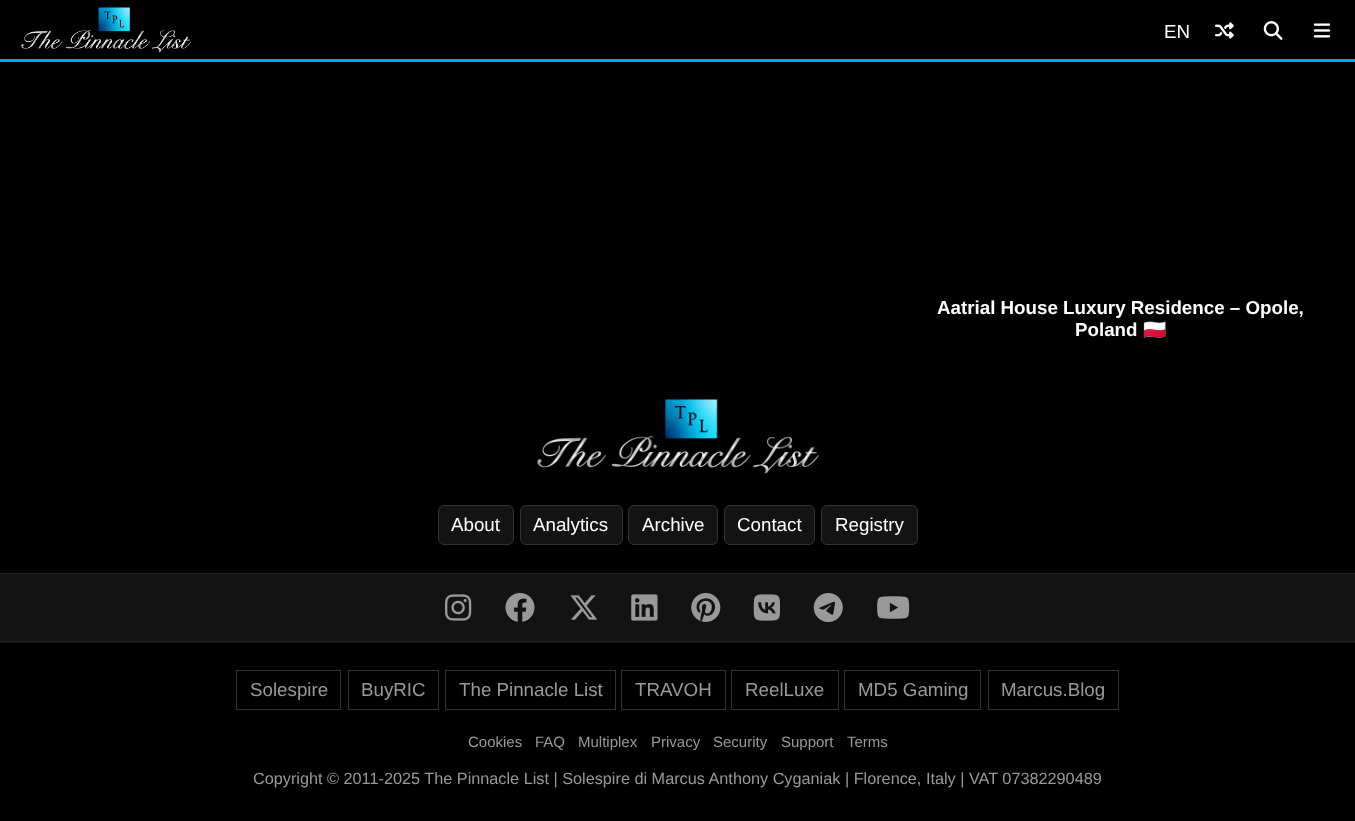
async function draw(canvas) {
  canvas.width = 1355
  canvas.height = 821
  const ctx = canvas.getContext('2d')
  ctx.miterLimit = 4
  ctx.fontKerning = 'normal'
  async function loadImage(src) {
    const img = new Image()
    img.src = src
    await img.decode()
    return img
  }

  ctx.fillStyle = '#000'
  ctx.fillRect(0, 0, 1355, 821)
  ctx.fillStyle = '#00a4e8'
  ctx.fillRect(0, 59, 1355, 3)
  ctx.drawImage(await loadImage('image0.png'), 21, 7, 170, 46)
  ctx.font = '18.75px Liberation Sans'
  ctx.fillStyle = '#fff'
  ctx.fillText('EN', 1164, 38)
  ctx.drawImage(await loadImage('image1.png'), 1215, 22, 19, 17)
  ctx.drawImage(await loadImage('image2.png'), 1263, 21, 20, 19)
  ctx.drawImage(await loadImage('image3.png'), 1313, 23, 18, 15)
  ctx.font = 'bold 18.75px Liberation Sans'
  ctx.fillText('Aatrial House Luxury Residence – Opole,', 937, 314)
  ctx.fillText('Poland', 1075, 336)
  ctx.font = 'bold 18.75px Noto Color Emoji'
  ctx.fillText('🇵🇱', 1143, 336)
  ctx.drawImage(await loadImage('image4.png'), 537, 399, 282, 75)
  ctx.fillStyle = '#131313'
  ctx.beginPath()
  ctx.roundRect(438.5, 505.5, 75, 39, 5.5)
  ctx.fill()
  ctx.strokeStyle = '#333'
  ctx.stroke()
  ctx.font = '18.75px Liberation Sans'
  ctx.fillStyle = '#fff'
  ctx.fillText('About', 451, 531)
  ctx.fillStyle = '#131313'
  ctx.beginPath()
  ctx.roundRect(520.5, 505.5, 102, 39, 5.5)
  ctx.fill()
  ctx.stroke()
  ctx.fillStyle = '#fff'
  ctx.fillText('Analytics', 533, 531)
  ctx.fillStyle = '#131313'
  ctx.beginPath()
  ctx.roundRect(628.5, 505.5, 89, 39, 5.5)
  ctx.fill()
  ctx.stroke()
  ctx.fillStyle = '#fff'
  ctx.fillText('Archive', 642, 531)
  ctx.fillStyle = '#131313'
  ctx.beginPath()
  ctx.roundRect(724.5, 505.5, 90, 39, 5.5)
  ctx.fill()
  ctx.stroke()
  ctx.fillStyle = '#fff'
  ctx.fillText('Contact', 737, 531)
  ctx.fillStyle = '#131313'
  ctx.beginPath()
  ctx.roundRect(821.5, 505.5, 96, 39, 5.5)
  ctx.fill()
  ctx.stroke()
  ctx.fillStyle = '#fff'
  ctx.fillText('Registry', 835, 531)
  ctx.fillStyle = '#131313'
  ctx.fillRect(0, 574, 1355, 69)
  ctx.fillStyle = '#222'
  ctx.fillRect(0, 573, 1355, 1)
  ctx.fillRect(0, 641, 1355, 1)
  ctx.drawImage(await loadImage('image5.png'), 445, 594, 27, 27)
  ctx.drawImage(await loadImage('image6.png'), 505, 593, 30, 29)
  ctx.drawImage(await loadImage('image7.png'), 570, 595, 28, 25)
  ctx.drawImage(await loadImage('image8.png'), 631, 594, 27, 27)
  ctx.drawImage(await loadImage('image9.png'), 691, 593, 30, 29)
  ctx.drawImage(await loadImage('image10.png'), 753, 594, 27, 27)
  ctx.drawImage(await loadImage('image11.png'), 813, 593, 30, 29)
  ctx.drawImage(await loadImage('image12.png'), 877, 596, 33, 23)
  ctx.strokeRect(236.5, 670.5, 104, 39)
  ctx.fillStyle = '#999'
  ctx.fillText('Solespire', 250, 696)
  ctx.strokeRect(348.5, 670.5, 90, 39)
  ctx.fillText('BuyRIC', 361, 696)
  ctx.strokeRect(445.5, 670.5, 170, 39)
  ctx.fillText('The Pinnacle List', 459, 696)
  ctx.strokeRect(621.5, 670.5, 104, 39)
  ctx.fillText('TRAVOH', 635, 696)
  ctx.strokeRect(731.5, 670.5, 107, 39)
  ctx.fillText('ReelLuxe', 745, 696)
  ctx.strokeRect(844.5, 670.5, 136, 39)
  ctx.fillText('MD5 Gaming', 858, 696)
  ctx.strokeRect(988.5, 670.5, 130, 39)
  ctx.fillText('Marcus.Blog', 1001, 696)
  ctx.font = '15px Liberation Sans'
  ctx.fillText('Cookies', 468, 747)
  ctx.fillText('FAQ', 535, 747)
  ctx.fillText('Multiplex', 578, 747)
  ctx.fillText('Privacy', 651, 747)
  ctx.fillText('Security', 713, 747)
  ctx.fillText('Support', 781, 747)
  ctx.fillText('Terms', 847, 747)
  ctx.font = '16.25px Liberation Sans'
  ctx.fillText('Copyright © 2011-2025 The Pinnacle List | Solespire di Marcus Anthony Cyganiak | Florence, Italy | VAT 07382290489', 253, 784)
}

draw(document.querySelector('canvas'))
